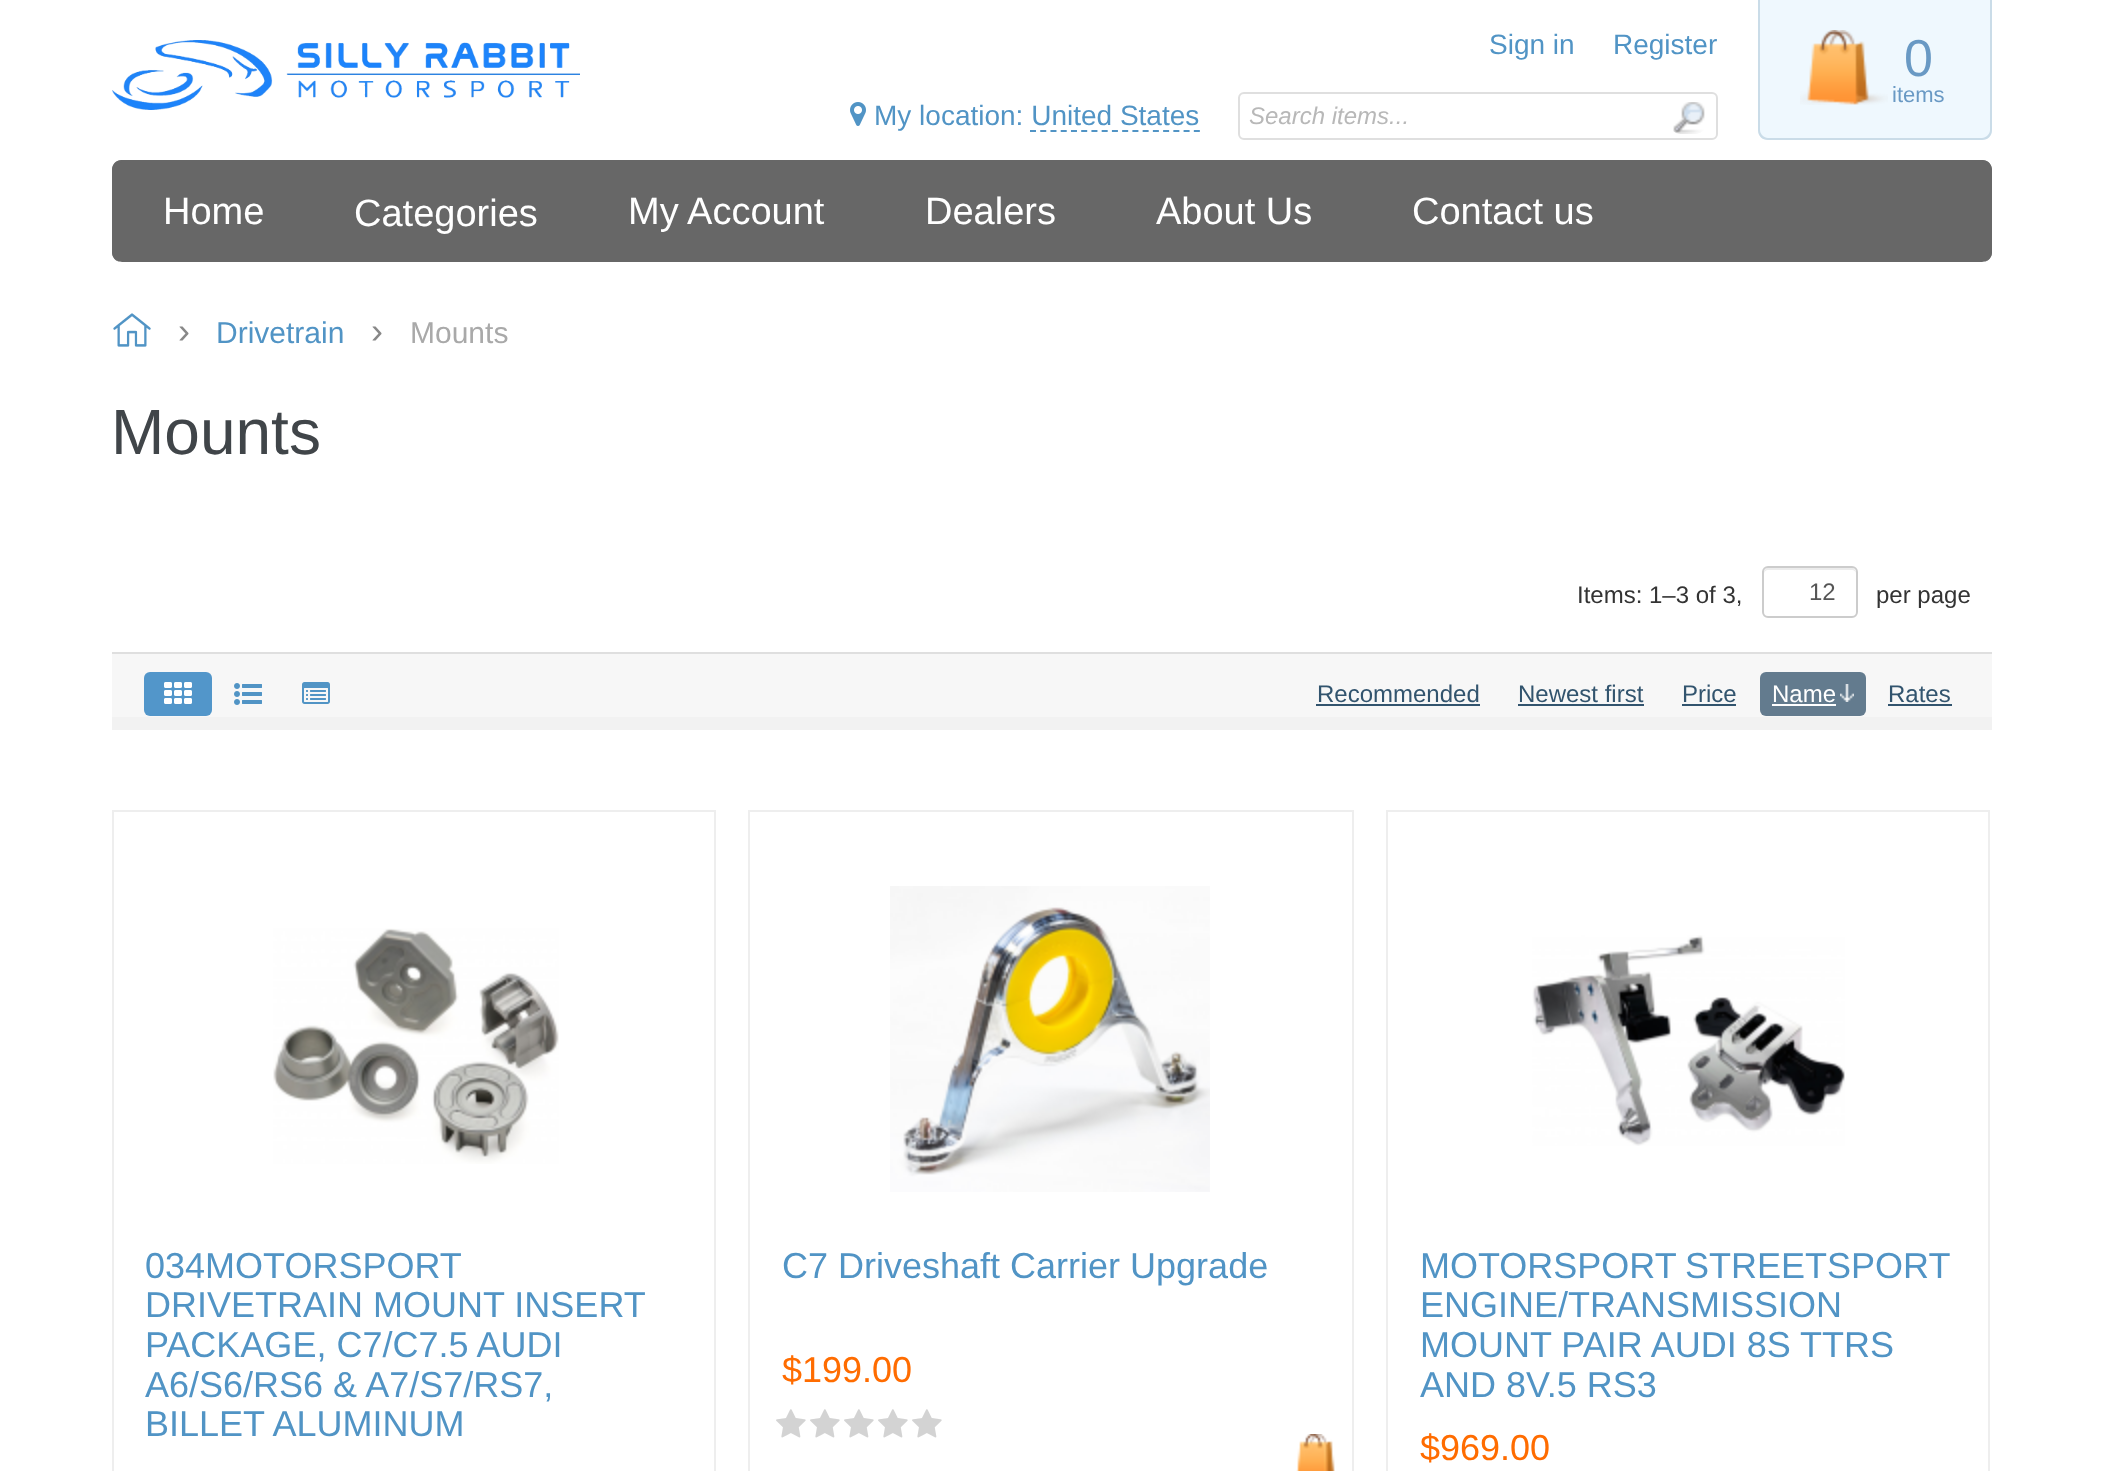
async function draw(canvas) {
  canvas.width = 2102
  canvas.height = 1471
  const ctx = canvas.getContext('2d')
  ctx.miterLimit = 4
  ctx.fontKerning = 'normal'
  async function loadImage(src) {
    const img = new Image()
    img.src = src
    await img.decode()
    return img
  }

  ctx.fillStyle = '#fff'
  ctx.fillRect(0, 0, 2102, 1471)
  ctx.drawImage(await loadImage('image0.png'), 112, 40, 468, 70)
  ctx.font = '28px Liberation Sans'
  ctx.fillStyle = '#5194c5'
  ctx.fillText('Sign in', 1489, 54)
  ctx.fillText('Register', 1613, 54)
  ctx.drawImage(await loadImage('image1.png'), 850, 102, 16, 24)
  ctx.fillText('My location: United States', 874, 125)
  ctx.beginPath()
  ctx.moveTo(1030, 131)
  ctx.lineTo(1200, 131)
  ctx.strokeStyle = '#5194c5'
  ctx.lineWidth = 2
  ctx.setLineDash([6, 4.24])
  ctx.stroke()
  ctx.beginPath()
  ctx.roundRect(1239, 93, 478, 46, 5)
  ctx.strokeStyle = '#dfdfdf'
  ctx.setLineDash([])
  ctx.stroke()
  ctx.font = 'italic 24px Liberation Sans'
  ctx.fillStyle = '#b8b8b8'
  ctx.fillText('Search items...', 1249, 124)
  ctx.drawImage(await loadImage('image2.png'), 1673, 102, 32, 32)
  ctx.fillStyle = '#eff8fe'
  ctx.beginPath()
  ctx.roundRect(1758, 0, 234, 140, [0, 0, 10, 10])
  ctx.fill()
  ctx.fillStyle = '#cadce8'
  ctx.beginPath()
  ctx.moveTo(1758, 0)
  ctx.lineTo(1992, 0)
  ctx.lineTo(1992, 130)
  ctx.bezierCurveTo(1992, 136, 1988, 140, 1982, 140)
  ctx.lineTo(1768, 140)
  ctx.bezierCurveTo(1762, 140, 1758, 136, 1758, 130)
  ctx.closePath()
  ctx.moveTo(1760, 0)
  ctx.lineTo(1990, 0)
  ctx.lineTo(1990, 130)
  ctx.bezierCurveTo(1990, 134, 1986, 138, 1982, 138)
  ctx.lineTo(1768, 138)
  ctx.bezierCurveTo(1764, 138, 1760, 134, 1760, 130)
  ctx.closePath()
  ctx.fill('evenodd')
  ctx.drawImage(await loadImage('image3.png'), 1800, 30, 88, 75)
  ctx.font = '52px Liberation Sans'
  ctx.fillStyle = '#6999c4'
  ctx.fillText('0', 1904, 76)
  ctx.font = '22px Liberation Sans'
  ctx.fillText('items', 1892, 102)
  ctx.fillStyle = '#676767'
  ctx.beginPath()
  ctx.roundRect(112, 160, 1880, 102, 10)
  ctx.fill()
  ctx.beginPath()
  ctx.moveTo(122, 160)
  ctx.lineTo(1982, 160)
  ctx.bezierCurveTo(1988, 160, 1992, 164, 1992, 170)
  ctx.lineTo(1992, 252)
  ctx.bezierCurveTo(1992, 258, 1988, 262, 1982, 262)
  ctx.lineTo(122, 262)
  ctx.bezierCurveTo(116, 262, 112, 258, 112, 252)
  ctx.lineTo(112, 170)
  ctx.bezierCurveTo(112, 164, 116, 160, 122, 160)
  ctx.closePath()
  ctx.moveTo(122, 162)
  ctx.lineTo(1982, 162)
  ctx.bezierCurveTo(1986, 162, 1990, 166, 1990, 170)
  ctx.lineTo(1990, 252)
  ctx.bezierCurveTo(1990, 258, 1986, 262, 1982, 262)
  ctx.lineTo(122, 262)
  ctx.bezierCurveTo(118, 262, 114, 258, 114, 252)
  ctx.lineTo(114, 170)
  ctx.bezierCurveTo(114, 166, 118, 162, 122, 162)
  ctx.closePath()
  ctx.fill('evenodd')
  ctx.font = '38px Liberation Sans'
  ctx.fillStyle = '#fff'
  ctx.fillText('Home', 163, 224)
  ctx.fillText('Categories', 354, 226)
  ctx.fillText('My Account', 628, 224)
  ctx.fillText('Dealers', 925, 224)
  ctx.fillText('About Us', 1156, 224)
  ctx.fillText('Contact us', 1412, 224)
  ctx.drawImage(await loadImage('image4.png'), 113, 313, 38, 34)
  ctx.font = '36px Liberation Sans'
  ctx.fillStyle = '#888'
  ctx.fillText('›', 178, 343)
  ctx.font = '30px Liberation Sans'
  ctx.fillStyle = '#5194c5'
  ctx.fillText('Drivetrain', 216, 343)
  ctx.font = '36px Liberation Sans'
  ctx.fillStyle = '#888'
  ctx.fillText('›', 371, 343)
  ctx.font = '30px Liberation Sans'
  ctx.fillStyle = '#a9a9a9'
  ctx.fillText('Mounts', 410, 343)
  ctx.font = '64px Liberation Sans'
  ctx.fillStyle = '#404549'
  ctx.fillText('Mounts', 111, 454)
  ctx.font = '24px Liberation Sans'
  ctx.fillStyle = '#333'
  ctx.fillText('Items: 1–3 of 3,', 1577, 603)
  ctx.fillStyle = '#ececec'
  ctx.beginPath()
  ctx.moveTo(1768, 570)
  ctx.lineTo(1852, 570)
  ctx.bezierCurveTo(1854, 570, 1856, 572, 1856, 574)
  ctx.bezierCurveTo(1856, 564, 1846, 568, 1838, 568)
  ctx.lineTo(1782, 568)
  ctx.bezierCurveTo(1774, 568, 1764, 564, 1764, 574)
  ctx.bezierCurveTo(1764, 572, 1766, 570, 1768, 570)
  ctx.closePath()
  ctx.fill()
  ctx.beginPath()
  ctx.roundRect(1763, 567, 94, 50, 5)
  ctx.strokeStyle = '#ccc'
  ctx.stroke()
  ctx.fillStyle = '#555'
  ctx.fillText('12', 1809, 600)
  ctx.fillStyle = '#333'
  ctx.fillText('per page', 1876, 603)
  ctx.fillStyle = '#f7f7f7'
  ctx.fillRect(112, 654, 1880, 63)
  ctx.fillStyle = '#f2f2f2'
  ctx.fillRect(112, 717, 1880, 13)
  ctx.fillStyle = '#dfdfdf'
  ctx.fillRect(112, 652, 1880, 2)
  ctx.fillStyle = '#5296ca'
  ctx.beginPath()
  ctx.roundRect(144, 672, 68, 44, 6)
  ctx.fill()
  ctx.drawImage(await loadImage('image5.png'), 164, 682, 28, 22)
  ctx.drawImage(await loadImage('image6.png'), 234, 683, 28, 22)
  ctx.drawImage(await loadImage('image7.png'), 302, 682, 28, 22)
  ctx.fillStyle = '#32546e'
  ctx.fillText('Recommended', 1317, 702)
  ctx.fillRect(1316, 704, 164, 2)
  ctx.fillText('Newest first', 1518, 702)
  ctx.fillRect(1518, 704, 126, 2)
  ctx.fillText('Price', 1682, 702)
  ctx.fillRect(1682, 704, 54, 2)
  ctx.fillStyle = '#637b8e'
  ctx.beginPath()
  ctx.roundRect(1760, 672, 106, 44, 6)
  ctx.fill()
  ctx.fillStyle = '#fff'
  ctx.fillText('Name', 1772, 702)
  ctx.fillRect(1772, 704, 64, 2)
  ctx.drawImage(await loadImage('image8.png'), 1840, 684, 14, 18)
  ctx.fillStyle = '#32546e'
  ctx.fillText('Rates', 1888, 702)
  ctx.fillRect(1888, 704, 64, 2)
  ctx.strokeStyle = '#eee'
  ctx.strokeRect(113, 811, 602, 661)
  ctx.drawImage(await loadImage('image9.png'), 273, 928, 286, 236)
  ctx.font = '36px Liberation Sans'
  ctx.fillStyle = '#5194c5'
  ctx.fillText('034MOTORSPORT', 145, 1278)
  ctx.fillText('DRIVETRAIN MOUNT INSERT', 145, 1317)
  ctx.fillText('PACKAGE, C7/C7.5 AUDI', 145, 1357)
  ctx.fillText('A6/S6/RS6 & A7/S7/RS7,', 145, 1397)
  ctx.fillText('BILLET ALUMINUM', 145, 1436)
  ctx.strokeRect(749, 811, 604, 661)
  ctx.drawImage(await loadImage('image10.png'), 890, 886, 320, 306)
  ctx.fillText('C7 Driveshaft Carrier Upgrade', 782, 1278)
  ctx.fillStyle = '#ff6c00'
  ctx.fillText('$199.00', 782, 1382)
  ctx.drawImage(await loadImage('image11.png'), 776, 1409, 30, 29)
  ctx.drawImage(await loadImage('image11.png'), 810, 1409, 30, 29)
  ctx.drawImage(await loadImage('image11.png'), 844, 1409, 30, 29)
  ctx.drawImage(await loadImage('image11.png'), 878, 1409, 30, 29)
  ctx.drawImage(await loadImage('image11.png'), 912, 1409, 30, 29)
  ctx.drawImage(await loadImage('image12.png'), 1296, 1434, 39, 37)
  ctx.strokeRect(1387, 811, 602, 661)
  ctx.drawImage(await loadImage('image13.png'), 1532, 935, 313, 211)
  ctx.wordSpacing = '-1px'
  ctx.fillStyle = '#5194c5'
  ctx.fillText('MOTORSPORT STREETSPORT', 1420, 1278)
  ctx.wordSpacing = '0px'
  ctx.fillText('ENGINE/TRANSMISSION', 1420, 1317)
  ctx.fillText('MOUNT PAIR AUDI 8S TTRS', 1420, 1357)
  ctx.fillText('AND 8V.5 RS3', 1420, 1397)
  ctx.fillStyle = '#ff6c00'
  ctx.fillText('$969.00', 1420, 1460)
}

draw(document.querySelector('canvas'))
